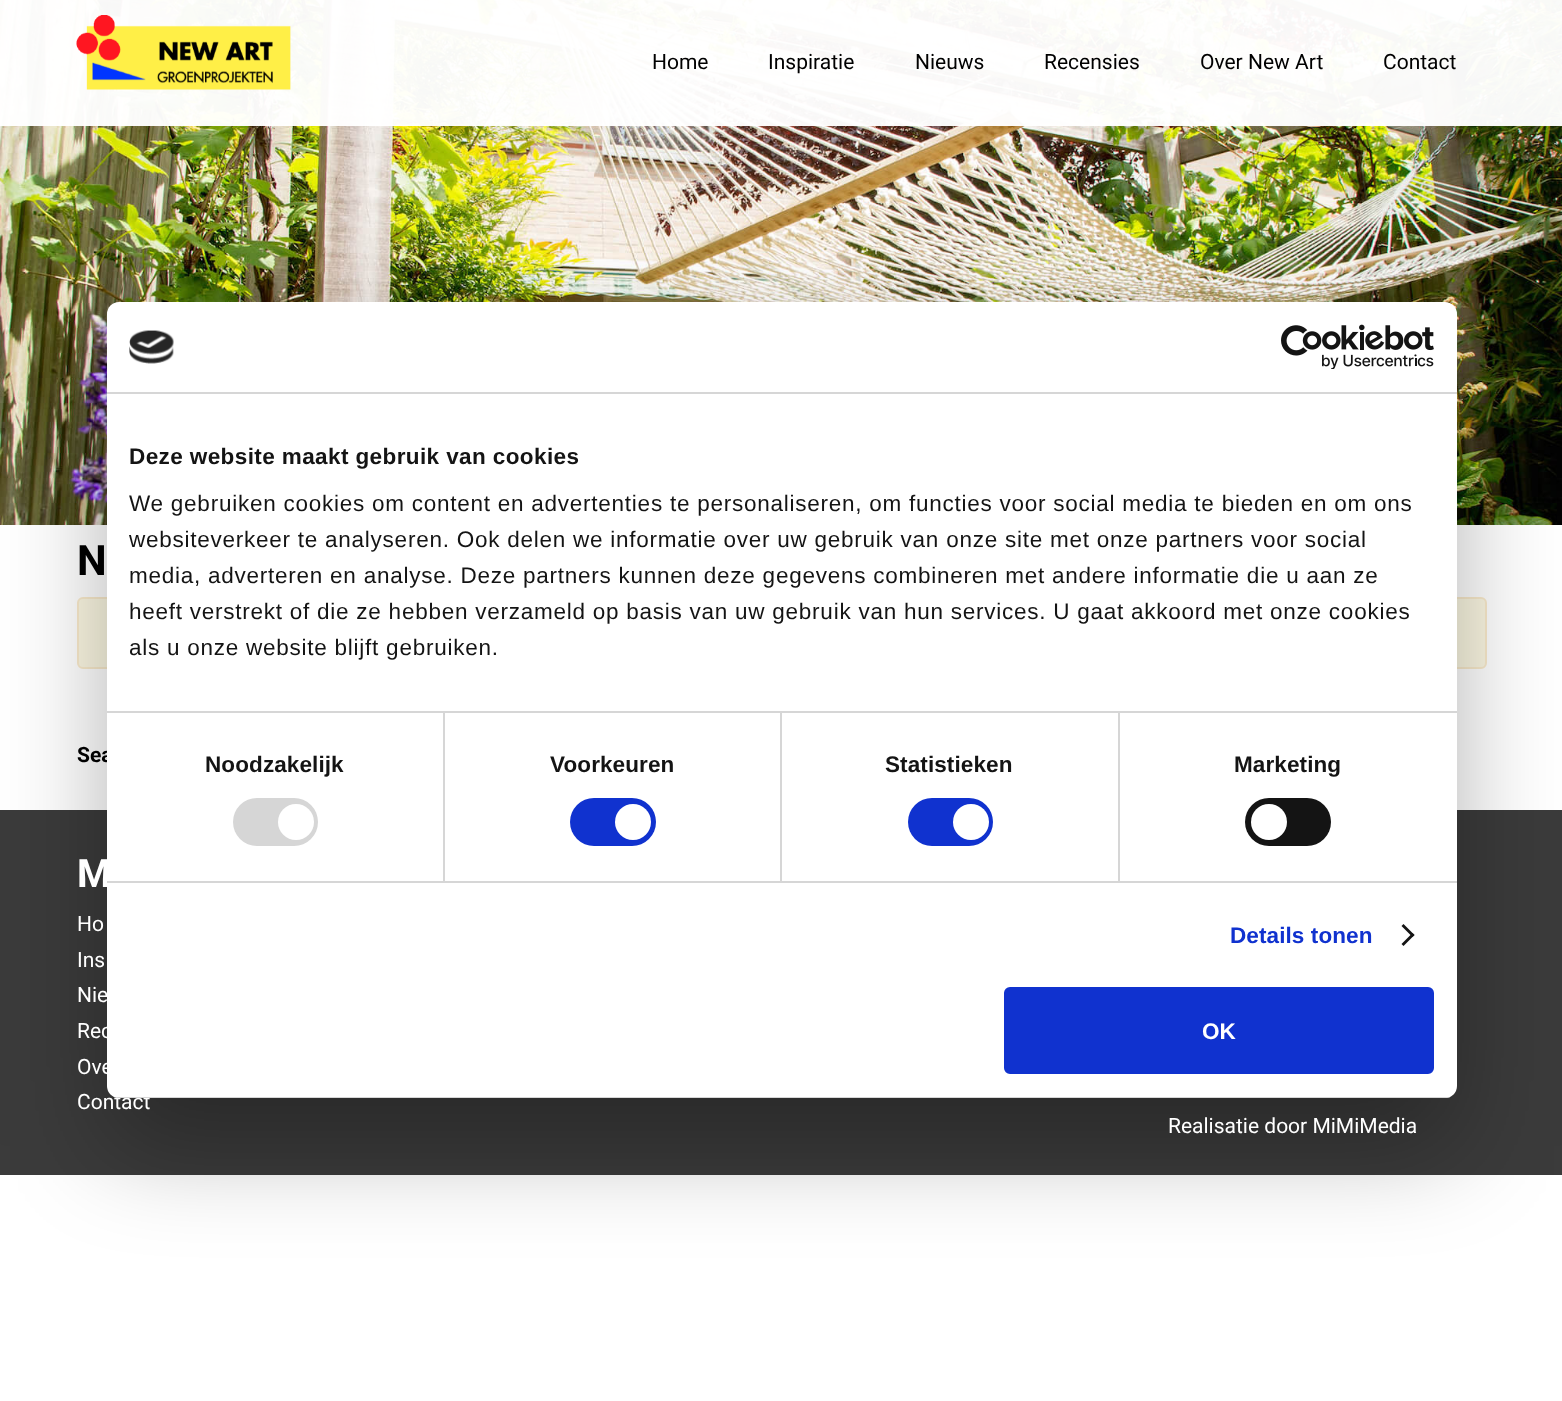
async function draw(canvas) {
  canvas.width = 1562
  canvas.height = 1401
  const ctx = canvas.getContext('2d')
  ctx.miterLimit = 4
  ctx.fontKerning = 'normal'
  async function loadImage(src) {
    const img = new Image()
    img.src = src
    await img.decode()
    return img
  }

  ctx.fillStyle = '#fff'
  ctx.fillRect(0, 0, 1562, 1401)
  ctx.drawImage(await loadImage('image0.png'), 0, 0, 1562, 525)
  ctx.fillStyle = '#fffffff7'
  ctx.fillRect(0, 0, 1562, 126)
  ctx.drawImage(await loadImage('image1.png'), 76, 15, 215, 75)
  ctx.font = '21px Roboto'
  ctx.fillStyle = '#000'
  ctx.fillText('Home', 652, 69)
  ctx.fillText('Inspiratie', 768, 69)
  ctx.fillText('Nieuws', 915, 69)
  ctx.fillText('Recensies', 1044, 69)
  ctx.fillText('Over New Art', 1200, 69)
  ctx.fillText('Contact', 1383, 69)
  ctx.font = 'bold 42px Roboto'
  ctx.fillText('N', 77, 575)
  ctx.fillStyle = '#fcf8e3'
  ctx.beginPath()
  ctx.roundRect(78, 598, 1408, 70, 5)
  ctx.fill()
  ctx.strokeStyle = '#faebcc'
  ctx.lineWidth = 2
  ctx.stroke()
  ctx.font = 'bold 21px Roboto'
  ctx.fillStyle = '#000'
  ctx.fillText('Sea', 77, 762)
  ctx.fillStyle = '#3b3b3b'
  ctx.fillRect(0, 810, 1562, 365)
  ctx.fillStyle = '#0000004d'
  ctx.filter = 'blur(51px)'
  ctx.beginPath()
  ctx.roundRect(107, 350, 1350, 796, 12)
  ctx.fill()
  ctx.filter = 'none'
  ctx.fillStyle = '#fff'
  ctx.beginPath()
  ctx.roundRect(107, 302, 1350, 796, 12)
  ctx.fill()
  ctx.fillStyle = '#d6d6d6'
  ctx.fillRect(107, 392, 1350, 2)
  ctx.drawImage(await loadImage('image2.png'), 129, 330, 45, 34)
  ctx.drawImage(await loadImage('image3.png'), 1281, 324, 153, 45)
  ctx.fillRect(107, 711, 1350, 2)
  ctx.letterSpacing = '0.4px'
  ctx.font = 'bold 22.5px Liberation Sans'
  ctx.fillStyle = '#141414'
  ctx.fillText('Deze website maakt gebruik van cookies', 129, 464)
  ctx.letterSpacing = '0.75px'
  ctx.font = '22.5px Liberation Sans'
  ctx.fillText('We gebruiken cookies om content en advertenties te personaliseren, om functies voor social media te bieden en om ons', 129, 511)
  ctx.fillText('websiteverkeer te analyseren. Ook delen we informatie over uw gebruik van onze site met onze partners voor social', 129, 547)
  ctx.fillText('media, adverteren en analyse. Deze partners kunnen deze gegevens combineren met andere informatie die u aan ze', 129, 583)
  ctx.fillText('heeft verstrekt of die ze hebben verzameld op basis van uw gebruik van hun services. U gaat akkoord met onze cookies', 129, 619)
  ctx.fillText('als u onze website blijft gebruiken.', 129, 655)
  ctx.letterSpacing = '0px'
  ctx.font = 'bold 39px Roboto'
  ctx.fillStyle = '#fff'
  ctx.fillText('M', 77, 887)
  ctx.fillStyle = '#d6d6d6'
  ctx.fillRect(107, 881, 1350, 2)
  ctx.fillRect(443, 713, 2, 168)
  ctx.letterSpacing = '0.1px'
  ctx.font = 'bold 22.5px Liberation Sans'
  ctx.fillStyle = '#141414'
  ctx.fillText('Noodzakelijk', 205, 772)
  ctx.fillStyle = '#d6d6d6'
  ctx.beginPath()
  ctx.roundRect(233, 798, 85, 48, 24)
  ctx.fill()
  ctx.fillStyle = '#fff'
  ctx.beginPath()
  ctx.arc(296, 822, 18, 0, 2 * Math.PI)
  ctx.fill()
  ctx.fillStyle = '#d6d6d6'
  ctx.fillRect(780, 713, 2, 168)
  ctx.fillStyle = '#141414'
  ctx.fillText('Voorkeuren', 550, 772)
  ctx.fillStyle = '#1032cf'
  ctx.beginPath()
  ctx.roundRect(570, 798, 86, 48, 24)
  ctx.fill()
  ctx.fillStyle = '#fff'
  ctx.beginPath()
  ctx.arc(633, 822, 18, 0, 2 * Math.PI)
  ctx.fill()
  ctx.fillStyle = '#d6d6d6'
  ctx.fillRect(1118, 713, 2, 168)
  ctx.fillStyle = '#141414'
  ctx.fillText('Statistieken', 885, 772)
  ctx.fillStyle = '#1032cf'
  ctx.beginPath()
  ctx.roundRect(908, 798, 85, 48, 24)
  ctx.fill()
  ctx.fillStyle = '#fff'
  ctx.beginPath()
  ctx.arc(971, 822, 18, 0, 2 * Math.PI)
  ctx.fill()
  ctx.fillStyle = '#141414'
  ctx.fillText('Marketing', 1234, 772)
  ctx.beginPath()
  ctx.roundRect(1245, 798, 86, 48, 24)
  ctx.fill()
  ctx.fillStyle = '#fff'
  ctx.beginPath()
  ctx.arc(1269, 822, 18, 0, 2 * Math.PI)
  ctx.fill()
  ctx.fillStyle = '#1032cf'
  ctx.fillText('Details tonen', 1230, 943)
  ctx.fillStyle = '#141414'
  ctx.beginPath()
  ctx.moveTo(1403.5, 924)
  ctx.lineTo(1414.5, 935)
  ctx.lineTo(1412.5, 937)
  ctx.lineTo(1401.5, 926)
  ctx.closePath()
  ctx.fill()
  ctx.beginPath()
  ctx.moveTo(1412.5, 933)
  ctx.lineTo(1414.5, 935)
  ctx.lineTo(1403.5, 946)
  ctx.lineTo(1401.5, 944)
  ctx.closePath()
  ctx.fill()
  ctx.letterSpacing = '0px'
  ctx.font = '21px Roboto'
  ctx.fillStyle = '#fff'
  ctx.fillText('Contact', 77, 1109)
  ctx.save()
  ctx.beginPath()
  ctx.roundRect(107, 302, 1350, 796, 12)
  ctx.clip()
  ctx.fillStyle = '#d6d6d6'
  ctx.fillRect(107, 1097, 1350, 1)
  ctx.restore()
  ctx.fillStyle = '#1032cf'
  ctx.beginPath()
  ctx.roundRect(1005.5, 988.5, 427, 84, 4.5)
  ctx.fill()
  ctx.strokeStyle = '#1032cf'
  ctx.lineWidth = 3
  ctx.stroke()
  ctx.font = 'bold 22.5px Liberation Sans'
  ctx.fillStyle = '#fff'
  ctx.fillText('OK', 1202, 1039)
  ctx.font = '21px Roboto'
  ctx.fillText('Ho', 77, 931)
  ctx.fillText('Ins', 77, 967)
  ctx.fillText('Nie', 77, 1002)
  ctx.fillText('Rec', 77, 1038)
  ctx.fillText('Ove', 77, 1074)
  ctx.fillText('Realisatie door MiMiMedia', 1168, 1133)
}

draw(document.querySelector('canvas'))
